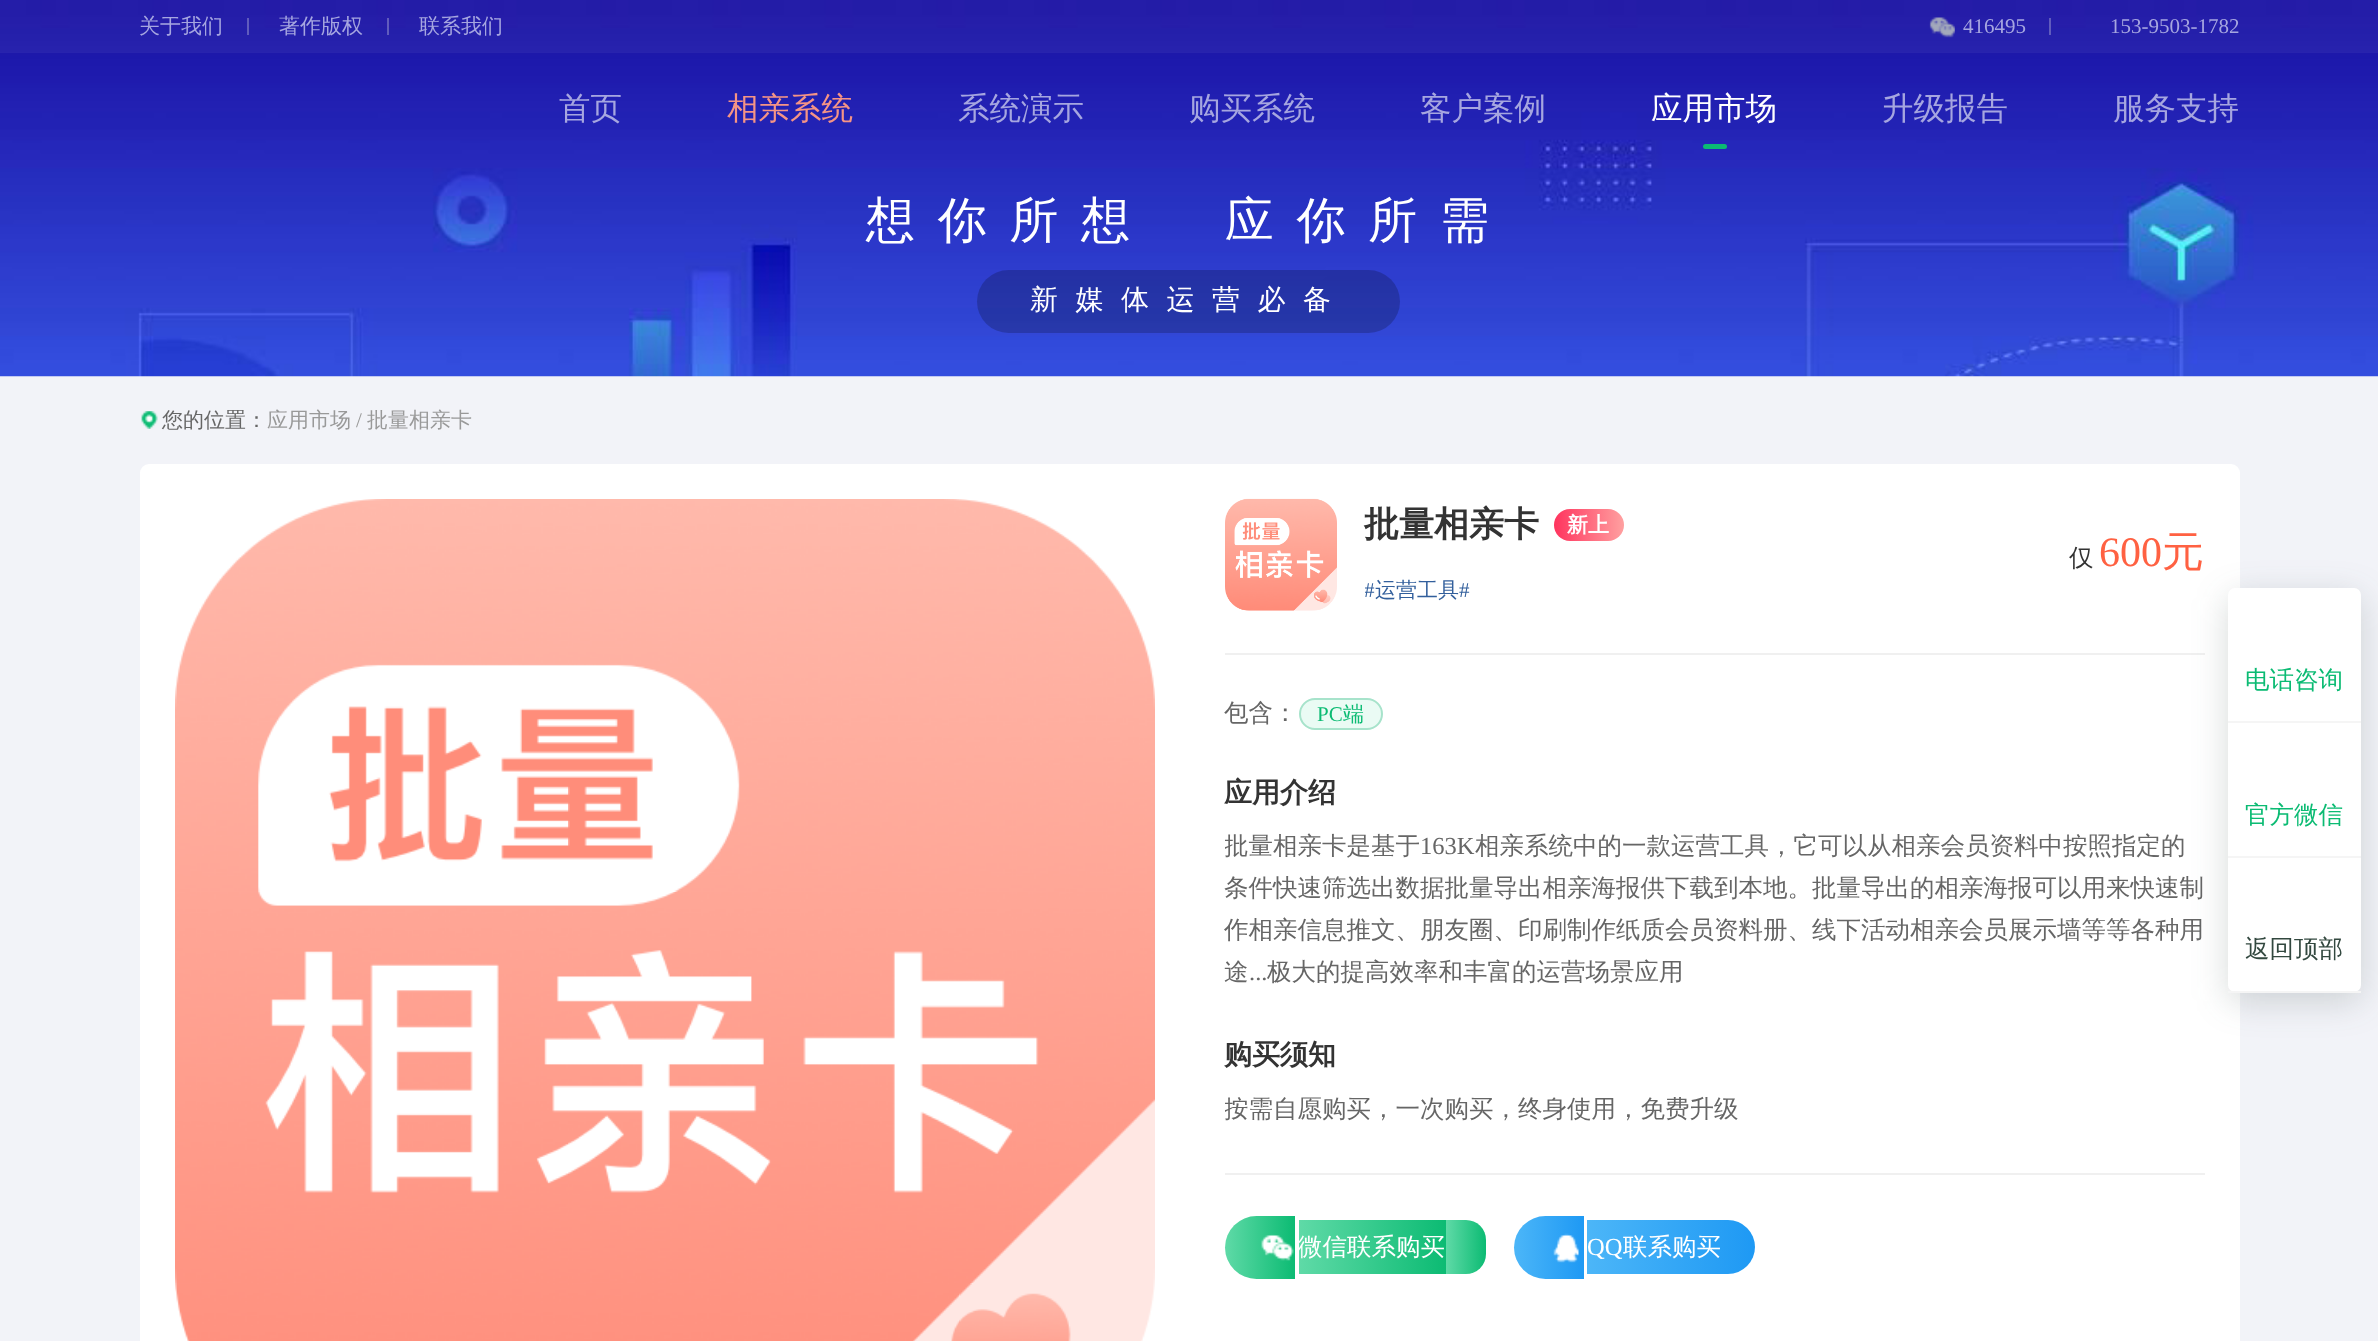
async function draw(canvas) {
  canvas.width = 2378
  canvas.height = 1341
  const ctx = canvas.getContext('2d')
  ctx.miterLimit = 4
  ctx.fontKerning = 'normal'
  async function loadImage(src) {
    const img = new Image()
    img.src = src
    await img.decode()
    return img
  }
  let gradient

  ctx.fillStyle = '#f2f3f8'
  ctx.fillRect(0, 0, 2378, 1341)
  ctx.drawImage(await loadImage('image1.png'), 0, 0, 2378, 377)
  ctx.fillStyle = '#ffffff0d'
  ctx.fillRect(0, 0, 2378, 53)
  ctx.font = '500 21px WenQuanYi Zen Hei'
  ctx.fillStyle = '#a6a6e0'
  ctx.fillText('关于我们', 139, 33)
  ctx.fillStyle = '#eaeaea4d'
  ctx.fillRect(247, 18, 2, 17)
  ctx.fillStyle = '#a6a6e0'
  ctx.fillText('著作版权', 279, 33)
  ctx.fillStyle = '#eaeaea4d'
  ctx.fillRect(387, 18, 2, 17)
  ctx.fillStyle = '#a6a6e0'
  ctx.fillText('联系我们', 419, 33)
  ctx.drawImage(await loadImage('image0.png'), 1929, 17, 26, 21)
  ctx.font = '21px Liberation Serif'
  ctx.fillText('416495', 1963, 33)
  ctx.fillStyle = '#eaeaea4d'
  ctx.fillRect(2049, 18, 2, 17)
  ctx.fillStyle = '#a6a6e0'
  ctx.fillText('153-9503-1782', 2110, 33)
  ctx.font = '500 31.5px WenQuanYi Zen Hei'
  ctx.fillText('首页', 559, 119)
  ctx.fillStyle = '#f59485'
  ctx.fillText('相亲系统', 727, 119)
  ctx.fillStyle = '#a6a6e0'
  ctx.fillText('系统演示', 958, 119)
  ctx.fillText('购买系统', 1189, 119)
  ctx.fillText('客户案例', 1420, 119)
  ctx.fillStyle = '#fff'
  ctx.fillText('应用市场', 1651, 119)
  ctx.fillStyle = '#0bbb73'
  ctx.beginPath()
  ctx.roundRect(1703, 144, 24, 5, 2.5)
  ctx.fill()
  ctx.fillStyle = '#a6a6e0'
  ctx.fillText('升级报告', 1882, 119)
  ctx.fillText('服务支持', 2113, 119)
  ctx.letterSpacing = '22.75px'
  ctx.font = '500 49px WenQuanYi Zen Hei'
  ctx.fillStyle = '#fff'
  ctx.fillText('想你所想　应你所需', 866, 237)
  ctx.fillStyle = '#00000033'
  ctx.beginPath()
  ctx.roundRect(977, 270, 423, 63, 31.5)
  ctx.fill()
  ctx.letterSpacing = '17.5px'
  ctx.font = '500 28px WenQuanYi Zen Hei'
  ctx.fillStyle = '#fff'
  ctx.fillText('新媒体运营必备', 1030, 309)
  ctx.drawImage(await loadImage('image2.png'), 141, 411, 17, 18)
  ctx.letterSpacing = '0px'
  ctx.font = '500 21px WenQuanYi Zen Hei'
  ctx.fillStyle = '#666'
  ctx.fillText('您的位置：', 162, 427)
  ctx.fillStyle = '#999'
  ctx.fillText('应用市场', 267, 427)
  ctx.font = '21px Liberation Serif'
  ctx.fillText('/', 356, 427)
  ctx.font = '500 21px WenQuanYi Zen Hei'
  ctx.fillText('批量相亲卡', 367, 427)
  ctx.fillStyle = '#fff'
  ctx.beginPath()
  ctx.roundRect(140, 464, 2100, 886, 9)
  ctx.fill()
  ctx.drawImage(await loadImage('image3.png'), 175, 499, 980, 842)
  ctx.fillStyle = '#f0f0f0'
  ctx.fillRect(1225, 653, 980, 2)
  ctx.drawImage(await loadImage('image4.png'), 1225, 498, 112, 113)
  ctx.font = 'bold 35px WenQuanYi Zen Hei'
  ctx.fillStyle = '#333'
  ctx.fillText('批量相亲卡', 1364, 536)
  gradient = ctx.createLinearGradient(1624, 525, 1554, 525)
  gradient.addColorStop(0, '#ffa0a0')
  gradient.addColorStop(1, '#ff345e')
  ctx.fillStyle = gradient
  ctx.beginPath()
  ctx.roundRect(1554, 509, 70, 32, 16)
  ctx.fill()
  ctx.font = 'bold 21px WenQuanYi Zen Hei'
  ctx.fillStyle = '#fff'
  ctx.fillText('新上', 1567, 532)
  ctx.font = '500 24.5px WenQuanYi Zen Hei'
  ctx.fillStyle = '#333'
  ctx.fillText('仅', 2069, 566)
  ctx.font = '42px Liberation Serif'
  ctx.fillStyle = '#ff6142'
  ctx.fillText('600', 2099, 566)
  ctx.font = '500 42px WenQuanYi Zen Hei'
  ctx.fillText('元', 2162, 566)
  ctx.save()
  ctx.beginPath()
  ctx.rect(1365, 576, 840, 30)
  ctx.clip()
  ctx.font = '21px Liberation Serif'
  ctx.fillStyle = '#325f9c'
  ctx.fillText('#', 1364, 597)
  ctx.restore()
  ctx.font = '500 21px WenQuanYi Zen Hei'
  ctx.fillStyle = '#325f9c'
  ctx.fillText('运营工具', 1375, 597)
  ctx.font = '21px Liberation Serif'
  ctx.fillText('#', 1459, 597)
  ctx.fillStyle = '#f0f0f0'
  ctx.fillRect(1225, 1173, 980, 2)
  ctx.font = '500 24.5px WenQuanYi Zen Hei'
  ctx.fillStyle = '#666'
  ctx.fillText('包含：', 1224, 721)
  ctx.fillStyle = '#eafbf4'
  ctx.beginPath()
  ctx.roundRect(1300, 699, 82, 30, 15)
  ctx.fill()
  ctx.strokeStyle = '#a7e3cb'
  ctx.lineWidth = 2
  ctx.stroke()
  ctx.font = '21px Liberation Serif'
  ctx.fillStyle = '#0bbb73'
  ctx.fillText('PC', 1317, 721)
  ctx.font = '500 21px WenQuanYi Zen Hei'
  ctx.fillText('端', 1343, 721)
  ctx.font = 'bold 28px WenQuanYi Zen Hei'
  ctx.fillStyle = '#333'
  ctx.fillText('应用介绍', 1224, 802)
  ctx.save()
  ctx.beginPath()
  ctx.rect(1225, 826, 980, 168)
  ctx.clip()
  ctx.font = '500 24.5px WenQuanYi Zen Hei'
  ctx.fillStyle = '#666'
  ctx.fillText('批量相亲卡是基于', 1224, 854)
  ctx.restore()
  ctx.font = '24.5px Liberation Serif'
  ctx.fillStyle = '#666'
  ctx.fillText('163K', 1420, 854)
  ctx.font = '500 24.5px WenQuanYi Zen Hei'
  ctx.fillText('相亲系统中的一款运营工具，它可以从相亲会员资料中按照指定的', 1475, 854)
  ctx.fillText('条件快速筛选出数据批量导出相亲海报供下载到本地。批量导出的相亲海报可以用来快速制', 1224, 896)
  ctx.fillText('作相亲信息推文、朋友圈、印刷制作纸质会员资料册、线下活动相亲会员展示墙等等各种用', 1224, 938)
  ctx.fillText('途', 1224, 980)
  ctx.font = '24.5px Liberation Serif'
  ctx.fillText('...', 1249, 980)
  ctx.font = '500 24.5px WenQuanYi Zen Hei'
  ctx.fillText('极大的提高效率和丰富的运营场景应用', 1267, 980)
  ctx.font = 'bold 28px WenQuanYi Zen Hei'
  ctx.fillStyle = '#333'
  ctx.fillText('购买须知', 1224, 1064)
  ctx.save()
  ctx.beginPath()
  ctx.rect(1225, 1089, 980, 42)
  ctx.clip()
  ctx.font = '500 24.5px WenQuanYi Zen Hei'
  ctx.fillStyle = '#666'
  ctx.fillText('按需自愿购买，一次购买，终身使用，免费升级', 1224, 1117)
  ctx.restore()
  gradient = ctx.createLinearGradient(1225, 1248, 1295, 1248)
  gradient.addColorStop(0, '#5fdaa7')
  gradient.addColorStop(1, '#0cbb73')
  ctx.fillStyle = gradient
  ctx.beginPath()
  ctx.roundRect(1225, 1216, 70, 63, [31.5, 0, 0, 31.5])
  ctx.fill()
  gradient = ctx.createLinearGradient(1299, 1247, 1446, 1247)
  gradient.addColorStop(0, '#5fdaa7')
  gradient.addColorStop(1, '#0cbb73')
  ctx.fillStyle = gradient
  ctx.fillRect(1299, 1220, 147, 54)
  gradient = ctx.createLinearGradient(1446, 1247, 1486, 1247)
  gradient.addColorStop(0, '#5fdaa7')
  gradient.addColorStop(1, '#0cbb73')
  ctx.fillStyle = gradient
  ctx.beginPath()
  ctx.roundRect(1446, 1220, 40, 54, [0, 20, 20, 0])
  ctx.fill()
  ctx.drawImage(await loadImage('image5.png'), 1261, 1234, 33, 27)
  ctx.font = '500 24.5px WenQuanYi Zen Hei'
  ctx.fillStyle = '#fff'
  ctx.fillText('微信联系购买', 1298, 1255)
  gradient = ctx.createLinearGradient(1514, 1248, 1584, 1248)
  gradient.addColorStop(0, '#4cb6f8')
  gradient.addColorStop(1, '#1e99f4')
  ctx.fillStyle = gradient
  ctx.beginPath()
  ctx.roundRect(1514, 1216, 70, 63, [31.5, 0, 0, 31.5])
  ctx.fill()
  gradient = ctx.createLinearGradient(1587, 1247, 1755, 1247)
  gradient.addColorStop(0, '#4cb6f8')
  gradient.addColorStop(1, '#1e99f4')
  ctx.fillStyle = gradient
  ctx.beginPath()
  ctx.roundRect(1587, 1220, 168, 54, [0, 27, 27, 0])
  ctx.fill()
  ctx.drawImage(await loadImage('image6.png'), 1553, 1233, 26, 30)
  ctx.font = '24.5px Liberation Serif'
  ctx.fillStyle = '#fff'
  ctx.fillText('QQ', 1587, 1255)
  ctx.font = '500 24.5px WenQuanYi Zen Hei'
  ctx.fillText('联系购买', 1623, 1255)
  ctx.fillStyle = '#32483f33'
  ctx.filter = 'blur(17.5px)'
  ctx.beginPath()
  ctx.roundRect(2228, 597, 133, 404, 7)
  ctx.fill()
  ctx.filter = 'none'
  ctx.fillStyle = '#fff'
  ctx.beginPath()
  ctx.roundRect(2228, 588, 133, 404, 7)
  ctx.fill()
  ctx.fillStyle = '#f5f5f5'
  ctx.fillRect(2228, 721, 133, 2)
  ctx.fillStyle = '#0bbb73'
  ctx.fillText('电话咨询', 2245, 688)
  ctx.fillStyle = '#f5f5f5'
  ctx.fillRect(2228, 856, 133, 2)
  ctx.fillStyle = '#0bbb73'
  ctx.fillText('官方微信', 2245, 823)
  ctx.fillStyle = '#f5f5f5'
  ctx.fillRect(2228, 991, 133, 2)
  ctx.fillStyle = '#32483f'
  ctx.fillText('返回顶部', 2245, 957)
}

draw(document.querySelector('canvas'))
